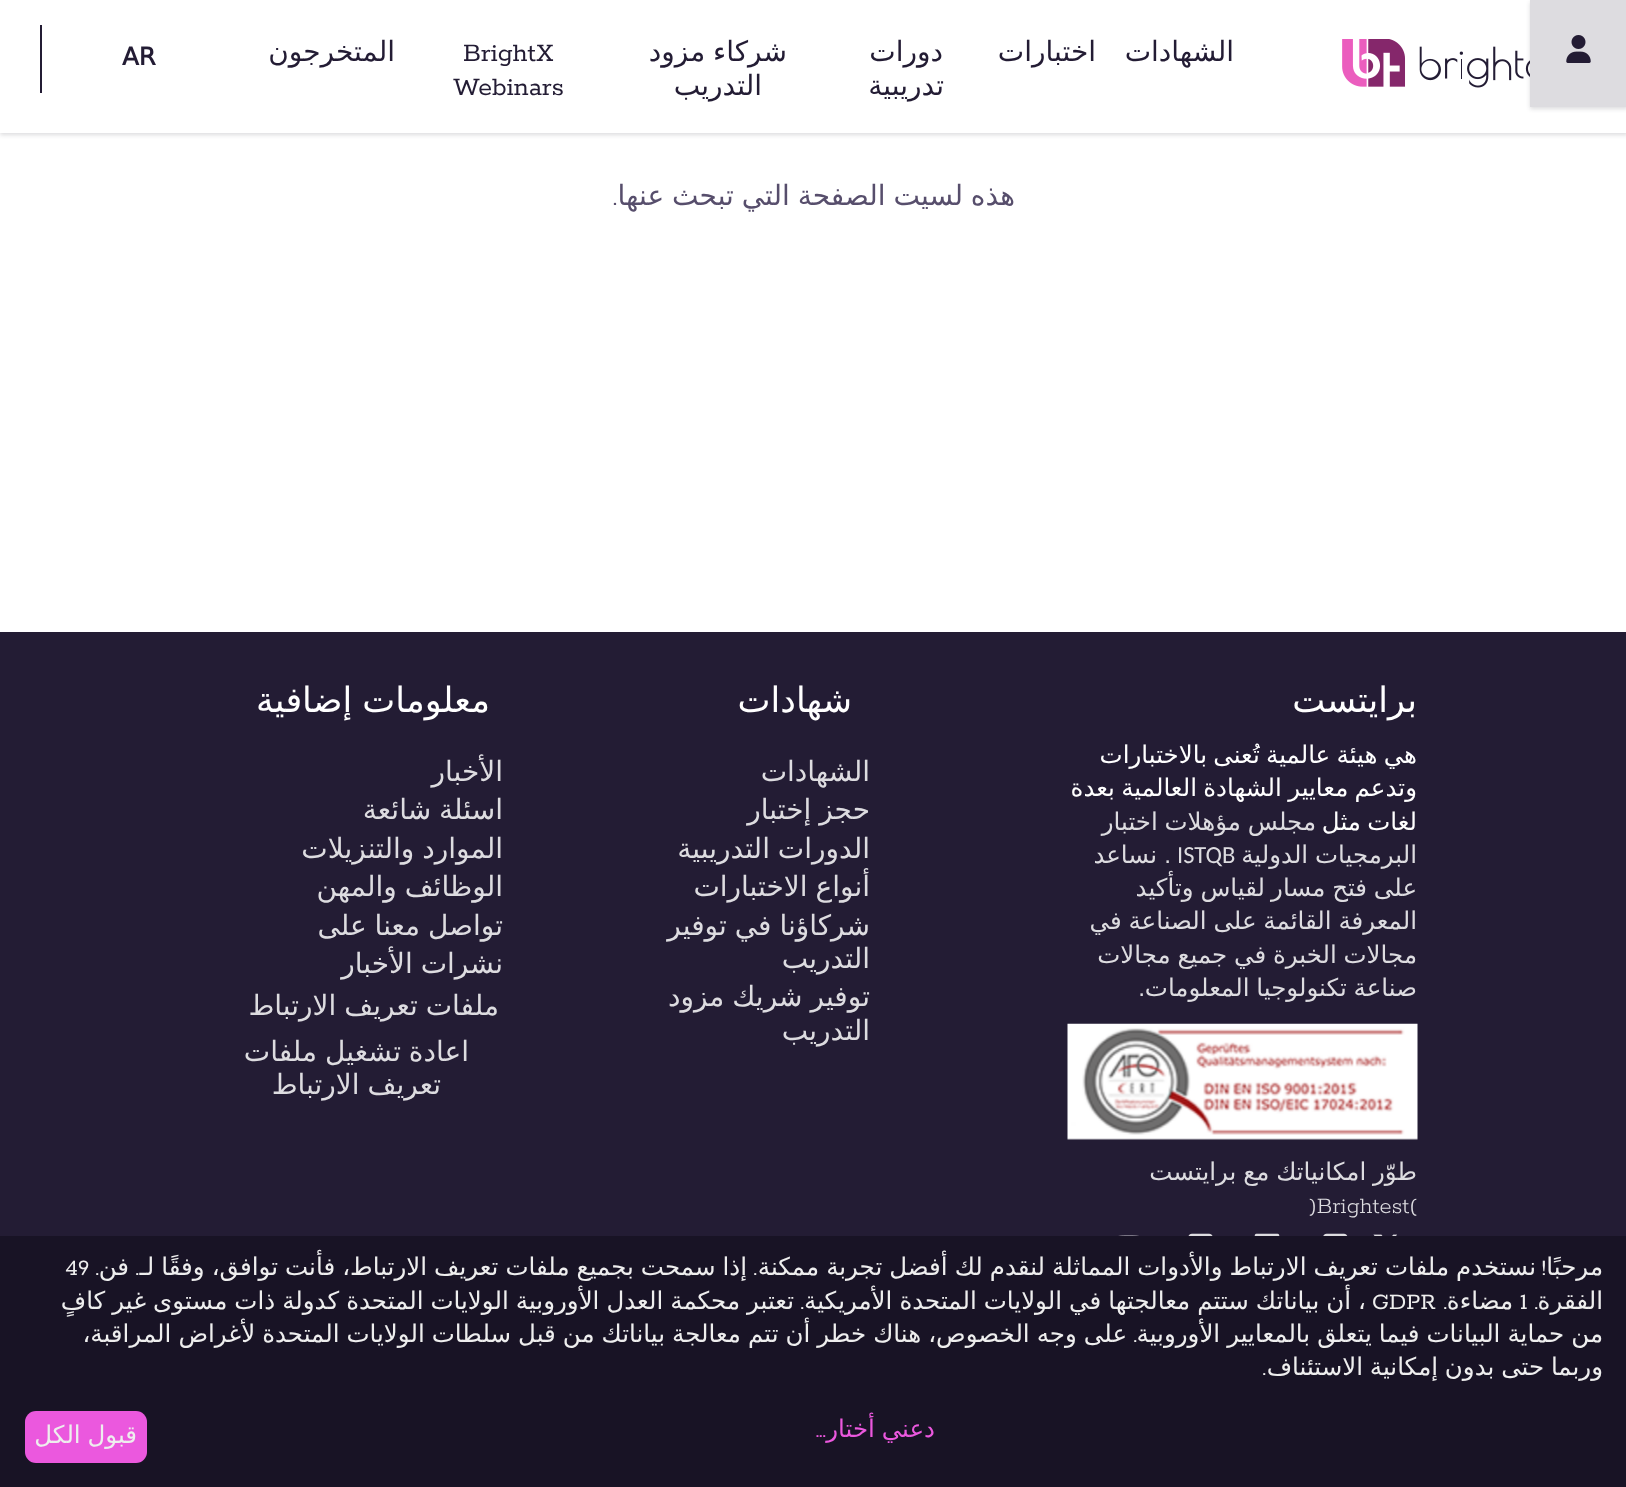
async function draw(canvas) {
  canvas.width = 1626
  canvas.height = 1487
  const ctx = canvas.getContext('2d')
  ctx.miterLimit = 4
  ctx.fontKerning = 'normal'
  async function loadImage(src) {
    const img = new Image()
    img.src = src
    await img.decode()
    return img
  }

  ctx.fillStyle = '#fff'
  ctx.fillRect(0, 0, 1626, 1487)
  ctx.fillStyle = '#16112126'
  ctx.filter = 'blur(2px)'
  ctx.beginPath()
  ctx.rect(0, 2, 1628, 133)
  ctx.fill()
  ctx.filter = 'none'
  ctx.fillStyle = '#fff'
  ctx.fillRect(0, 0, 1626, 133)
  ctx.drawImage(await loadImage('image1.png'), 1342, 39, 188, 49)
  ctx.fillStyle = '#16112126'
  ctx.filter = 'blur(2px)'
  ctx.beginPath()
  ctx.rect(1530, 2, 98, 107)
  ctx.fill()
  ctx.filter = 'none'
  ctx.fillStyle = '#dddce0'
  ctx.fillRect(1530, 0, 96, 107)
  ctx.drawImage(await loadImage('image0.png'), 1566, 35, 25, 28)
  ctx.direction = 'rtl'
  ctx.font = '28px DejaVu Sans'
  ctx.fillStyle = '#231c34'
  ctx.fillText('الشهادات', 1234, 61)
  ctx.fillText('اختبارات', 1096, 61)
  ctx.fillText('دورات', 943, 61)
  ctx.fillText('تدريبية', 944, 95)
  ctx.wordSpacing = '-1px'
  ctx.fillText('شركاء مزود', 787, 61)
  ctx.wordSpacing = '0px'
  ctx.fillText('التدريب', 762, 95)
  ctx.direction = 'ltr'
  ctx.font = '28px Rokkitt'
  ctx.fillText('BrightX', 463, 61)
  ctx.fillText('Webinars', 453, 95)
  ctx.direction = 'rtl'
  ctx.font = '28px DejaVu Sans'
  ctx.fillText('المتخرجون', 395, 61)
  ctx.fillRect(40, 25, 2, 68)
  ctx.direction = 'ltr'
  ctx.font = 'bold 24.5px DejaVu Sans'
  ctx.fillText('AR', 122, 65)
  ctx.wordSpacing = '-1px'
  ctx.direction = 'rtl'
  ctx.font = '28px DejaVu Sans'
  ctx.fillStyle = '#574e6c'
  ctx.fillText('هذه لسيت الصفحة التي تبحث عنها', 1015, 205)
  ctx.wordSpacing = '0px'
  ctx.font = '28px Rokkitt'
  ctx.fillText('.', 617, 205)
  ctx.fillStyle = '#231c34'
  ctx.fillRect(0, 632, 1626, 604)
  ctx.font = '35px DejaVu Sans'
  ctx.fillStyle = '#fff'
  ctx.fillText('برايتست', 1417, 712)
  ctx.wordSpacing = '-1.5px'
  ctx.font = '24.5px DejaVu Sans'
  ctx.fillText('هي هيئة عالمية تُعنى بالاختبارات', 1417, 763)
  ctx.fillText('وتدعم معايير الشهادة العالمية بعدة', 1417, 796)
  ctx.fillText('لغات مثل', 1417, 830)
  ctx.wordSpacing = '-1px'
  ctx.fillStyle = '#dddce0'
  ctx.fillText('مجلس مؤهلات اختبار', 1316, 830)
  ctx.fillText('البرمجيات الدولية', 1417, 863)
  ctx.wordSpacing = '0px'
  ctx.direction = 'ltr'
  ctx.font = '24.5px Carlito'
  ctx.fillText('ISTQB', 1177, 863)
  ctx.direction = 'rtl'
  ctx.font = '24.5px Liberation Sans'
  ctx.fillText('.', 1171, 863)
  ctx.font = '24.5px DejaVu Sans'
  ctx.fillText('نساعد', 1157, 863)
  ctx.wordSpacing = '-1px'
  ctx.fillText('على فتح مسار', 1417, 896)
  ctx.fillText('لقياس وتأكيد', 1265, 896)
  ctx.fillText('المعرفة القائمة على الصناعة في', 1417, 929)
  ctx.fillText('مجالات الخبرة في جميع مجالات', 1417, 963)
  ctx.fillText('صناعة تكنولوجيا المعلومات', 1417, 996)
  ctx.wordSpacing = '0px'
  ctx.font = '24.5px Liberation Sans'
  ctx.fillText('.', 1145, 996)
  ctx.drawImage(await loadImage('image2.png'), 1067, 1023, 351, 117)
  ctx.wordSpacing = '-1px'
  ctx.font = '24.5px DejaVu Sans'
  ctx.fillText('طوّر امكانياتك مع برايتست', 1417, 1180)
  ctx.wordSpacing = '0px'
  ctx.direction = 'ltr'
  ctx.font = '300 24.5px Rokkitt'
  ctx.fillText(')Brightest(', 1309, 1213)
  ctx.drawImage(await loadImage('image3.png'), 1373, 1234, 24, 2)
  ctx.drawImage(await loadImage('image4.png'), 1323, 1233, 25, 3)
  ctx.drawImage(await loadImage('image5.png'), 1254, 1233, 26, 3)
  ctx.drawImage(await loadImage('image6.png'), 1188, 1233, 25, 3)
  ctx.drawImage(await loadImage('image7.png'), 1118, 1235, 21, 1)
  ctx.direction = 'rtl'
  ctx.font = '35px DejaVu Sans'
  ctx.fillStyle = '#fff'
  ctx.fillText('شهادات', 852, 712)
  ctx.font = '28px DejaVu Sans'
  ctx.fillStyle = '#dddce0'
  ctx.fillText('الشهادات', 870, 781)
  ctx.wordSpacing = '-1px'
  ctx.fillText('حجز إختبار', 870, 819)
  ctx.fillText('الدورات التدريبية', 870, 858)
  ctx.fillText('أنواع الاختبارات', 870, 896)
  ctx.fillText('شركاؤنا في توفير', 870, 935)
  ctx.wordSpacing = '0px'
  ctx.fillText('التدريب', 870, 968)
  ctx.wordSpacing = '-1px'
  ctx.fillText('توفير شريك مزود', 870, 1006)
  ctx.wordSpacing = '0px'
  ctx.fillText('التدريب', 870, 1040)
  ctx.wordSpacing = '-1px'
  ctx.font = '35px DejaVu Sans'
  ctx.fillStyle = '#fff'
  ctx.fillText('معلومات إضافية', 490, 712)
  ctx.wordSpacing = '0px'
  ctx.font = '28px DejaVu Sans'
  ctx.fillStyle = '#dddce0'
  ctx.fillText('الأخبار', 503, 781)
  ctx.wordSpacing = '-1px'
  ctx.fillText('اسئلة شائعة', 503, 819)
  ctx.fillText('الموارد والتنزيلات', 503, 858)
  ctx.fillText('الوظائف والمهن', 503, 896)
  ctx.fillText('تواصل معنا على', 503, 935)
  ctx.fillText('نشرات الأخبار', 503, 973)
  ctx.fillText('ملفات تعريف الارتباط', 499, 1015)
  ctx.fillText('اعادة تشغيل ملفات', 469, 1061)
  ctx.fillText('تعريف الارتباط', 441, 1094)
  ctx.fillStyle = '#181325'
  ctx.fillRect(0, 1236, 1626, 251)
  ctx.wordSpacing = '0px'
  ctx.font = '24.5px DejaVu Sans'
  ctx.fillStyle = '#eee'
  ctx.fillText('مرحبًا', 1603, 1275)
  ctx.font = '24.5px Rokkitt'
  ctx.fillText('!', 1546, 1275)
  ctx.wordSpacing = '-0.75px'
  ctx.font = '24.5px DejaVu Sans'
  ctx.fillText('نستخدم ملفات تعريف الارتباط والأدوات المماثلة لنقدم لك أفضل تجربة ممكنة', 1536, 1275)
  ctx.wordSpacing = '0px'
  ctx.font = '24.5px Rokkitt'
  ctx.fillText('.', 757, 1275)
  ctx.fillText('.', 139, 1275)
  ctx.wordSpacing = '-0.75px'
  ctx.font = '24.5px DejaVu Sans'
  ctx.fillText('إذا سمحت بجميع ملفات تعريف الارتباط، فأنت توافق، وفقًا لـ', 747, 1275)
  ctx.wordSpacing = '0px'
  ctx.fillText('فن', 129, 1275)
  ctx.font = '24.5px Rokkitt'
  ctx.fillText('.', 99, 1275)
  ctx.direction = 'ltr'
  ctx.fillText('49', 65, 1275)
  ctx.direction = 'rtl'
  ctx.font = '24.5px DejaVu Sans'
  ctx.fillText('الفقرة', 1603, 1309)
  ctx.font = '24.5px Rokkitt'
  ctx.fillText('.', 1538, 1309)
  ctx.direction = 'ltr'
  ctx.fillText('1', 1520, 1309)
  ctx.direction = 'rtl'
  ctx.font = '24.5px DejaVu Sans'
  ctx.fillText('مضاءة', 1513, 1309)
  ctx.font = '24.5px Rokkitt'
  ctx.fillText('.', 1447, 1309)
  ctx.direction = 'ltr'
  ctx.fillText('GDPR', 1372, 1309)
  ctx.wordSpacing = '-0.75px'
  ctx.direction = 'rtl'
  ctx.font = '24.5px DejaVu Sans'
  ctx.fillText('، أن بياناتك ستتم معالجتها في الولايات المتحدة الأمريكية', 1366, 1309)
  ctx.wordSpacing = '0px'
  ctx.font = '24.5px Rokkitt'
  ctx.fillText('.', 804, 1309)
  ctx.wordSpacing = '-0.75px'
  ctx.font = '24.5px DejaVu Sans'
  ctx.fillText('تعتبر محكمة العدل الأوروبية الولايات المتحدة كدولة ذات مستوى غير كافٍ', 794, 1309)
  ctx.fillText('من حماية البيانات فيما يتعلق بالمعايير الأوروبية', 1603, 1342)
  ctx.wordSpacing = '0px'
  ctx.font = '24.5px Rokkitt'
  ctx.fillText('.', 1137, 1342)
  ctx.wordSpacing = '-0.75px'
  ctx.font = '24.5px DejaVu Sans'
  ctx.fillText('على وجه الخصوص، هناك خطر أن تتم معالجة بياناتك من قبل سلطات الولايات المتحدة لأغراض المراقبة،', 1127, 1342)
  ctx.wordSpacing = '-1px'
  ctx.fillText('وربما حتى بدون إمكانية الاستئناف', 1603, 1375)
  ctx.wordSpacing = '0px'
  ctx.font = '24.5px Rokkitt'
  ctx.fillText('.', 1266, 1375)
  ctx.fillStyle = '#eb58de'
  ctx.fillText('...', 826, 1437)
  ctx.wordSpacing = '-1px'
  ctx.font = '24.5px DejaVu Sans'
  ctx.fillText('دعني أختار', 935, 1437)
  ctx.beginPath()
  ctx.roundRect(25, 1411, 122, 52, 11)
  ctx.fill()
  ctx.fillStyle = '#eee'
  ctx.fillText('قبول الكل', 137, 1443)
}

draw(document.querySelector('canvas'))
